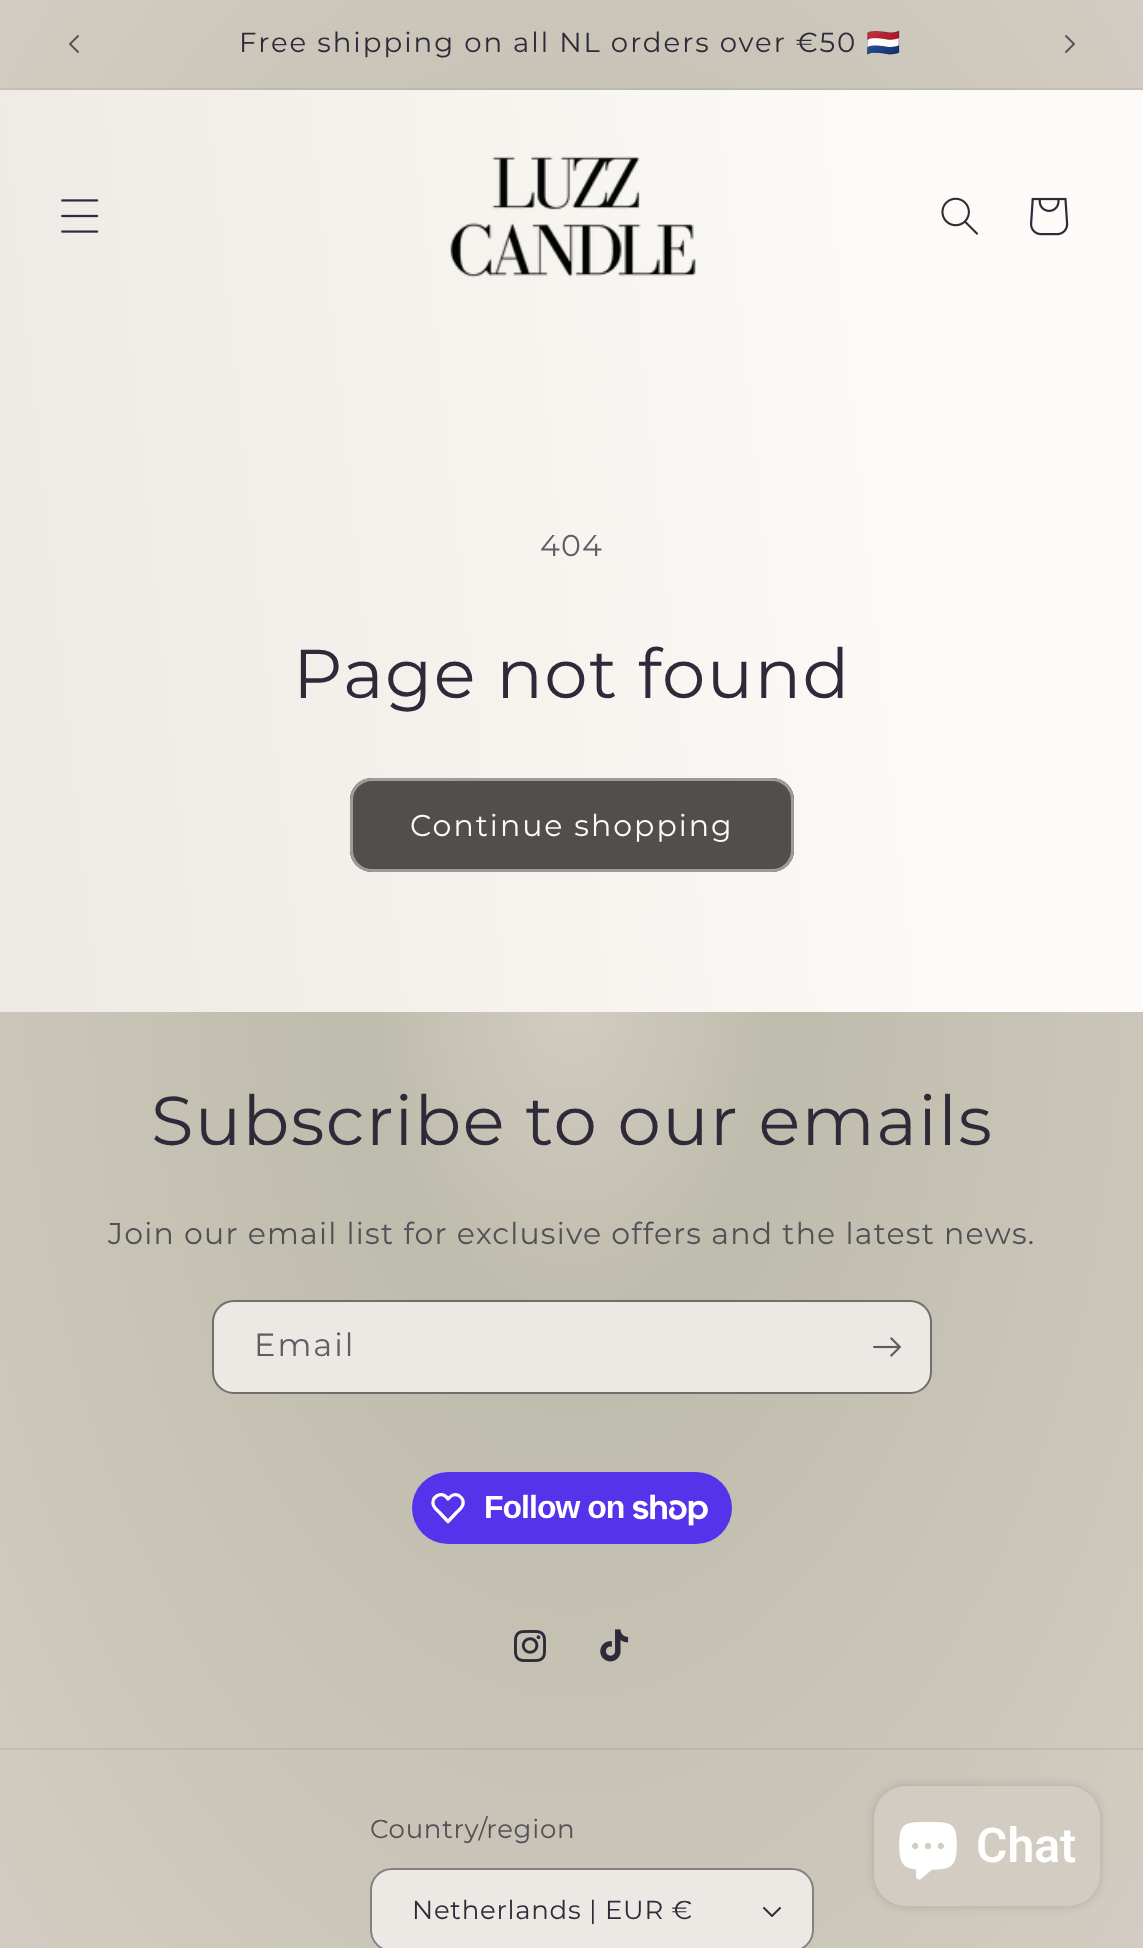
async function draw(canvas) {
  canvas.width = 1143
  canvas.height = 1948
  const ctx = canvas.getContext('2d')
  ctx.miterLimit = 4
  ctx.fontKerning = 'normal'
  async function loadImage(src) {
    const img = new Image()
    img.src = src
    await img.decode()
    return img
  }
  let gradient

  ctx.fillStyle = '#fff'
  ctx.fillRect(0, 0, 1143, 1948)
  gradient = ctx.createLinearGradient(-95, 1044, 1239, 904)
  gradient.addColorStop(0.04, '#ece9e4')
  gradient.addColorStop(0.82, '#fdfbf7')
  ctx.fillStyle = gradient
  ctx.fillRect(0, 90, 1143, 922)
  gradient = ctx.createRadialGradient(572, 572.23, 0, 572, 572.23, 809)
  gradient.addColorStop(0, '#d3ccc2')
  gradient.addColorStop(0.26, '#bebcac')
  gradient.addColorStop(1, '#d3ccc2')
  ctx.fillStyle = gradient
  ctx.beginPath()
  ctx.rect(0, 0, 1143, 88)
  ctx.save()
  ctx.clip()
  ctx.scale(1, 1377 / 809)
  ctx.fillRect(0, 0, 1143, 1145)
  ctx.restore()
  gradient = ctx.createRadialGradient(572, 572.23, 0, 572, 572.23, 809)
  gradient.addColorStop(0, '#c6bfb7')
  gradient.addColorStop(0.26, '#b2b0a3')
  gradient.addColorStop(1, '#c6bfb7')
  ctx.fillStyle = gradient
  ctx.beginPath()
  ctx.rect(0, 88, 1143, 2)
  ctx.save()
  ctx.clip()
  ctx.scale(1, 1377 / 809)
  ctx.fillRect(0, 0, 1143, 1145)
  ctx.restore()
  ctx.drawImage(await loadImage('image0.png'), 69, 35, 10, 18)
  ctx.letterSpacing = '2px'
  ctx.wordSpacing = '-0.25px'
  ctx.font = '27.6px Montserrat'
  ctx.fillStyle = '#2e2a39'
  ctx.fillText('Free shipping on all NL orders over €50', 239, 52)
  ctx.wordSpacing = '0px'
  ctx.font = '27.6px Noto Color Emoji'
  ctx.fillText('🇳🇱', 866, 52)
  ctx.drawImage(await loadImage('image1.png'), 1065, 35, 10, 18)
  ctx.drawImage(await loadImage('image2.png'), 61, 199, 38, 34)
  ctx.drawImage(await loadImage('image3.png'), 450, 156, 246, 122)
  ctx.drawImage(await loadImage('image4.png'), 941, 197, 37, 38)
  ctx.drawImage(await loadImage('image5.png'), 1030, 197, 39, 39)
  ctx.letterSpacing = '1.2px'
  ctx.font = '30px Montserrat'
  ctx.fillStyle = '#605d67'
  ctx.fillText('404', 540, 556)
  ctx.letterSpacing = '1.4px'
  ctx.font = '69px Montserrat'
  ctx.fillStyle = '#2e2a39'
  ctx.fillText('Page not found', 293, 698)
  ctx.fillStyle = '#514f4c'
  ctx.beginPath()
  ctx.roundRect(350, 778, 444, 94, 22)
  ctx.fill()
  ctx.beginPath()
  ctx.roundRect(351, 779, 442, 92, 21)
  ctx.strokeStyle = '#514f4c'
  ctx.lineWidth = 2
  ctx.stroke()
  ctx.beginPath()
  ctx.roundRect(351.5, 779.5, 441, 91, 20.5)
  ctx.strokeStyle = '#fdfbf773'
  ctx.lineWidth = 3
  ctx.stroke()
  ctx.letterSpacing = '2px'
  ctx.font = '30px Montserrat'
  ctx.fillStyle = '#fdfbf7'
  ctx.fillText('Continue shopping', 410, 836)
  gradient = ctx.createRadialGradient(572, 572.23, 0, 572, 572.23, 809)
  gradient.addColorStop(0, '#d3ccc2')
  gradient.addColorStop(0.26, '#bebcac')
  gradient.addColorStop(1, '#d3ccc2')
  ctx.fillStyle = gradient
  ctx.beginPath()
  ctx.rect(0, 1012, 1143, 394)
  ctx.save()
  ctx.clip()
  ctx.scale(1, 1377 / 809)
  ctx.fillRect(0, 0, 1143, 1145)
  ctx.restore()
  ctx.letterSpacing = '1.4px'
  ctx.font = '69px Montserrat'
  ctx.fillStyle = '#2e2a39'
  ctx.fillText('Subscribe to our emails', 151, 1145)
  ctx.letterSpacing = '1.2px'
  ctx.font = '30px Montserrat'
  ctx.fillStyle = '#534f57'
  ctx.fillText('Join our email list for exclusive offers and the latest news.', 108, 1244)
  ctx.fillStyle = '#ece9e4'
  ctx.beginPath()
  ctx.roundRect(214, 1302, 716, 90, 20)
  ctx.fill()
  ctx.beginPath()
  ctx.roundRect(213, 1301, 718, 92, 21)
  ctx.strokeStyle = '#2e2a398c'
  ctx.lineWidth = 2
  ctx.stroke()
  ctx.letterSpacing = '2px'
  ctx.font = '32px Montserrat'
  ctx.fillStyle = '#605d67'
  ctx.fillText('Email', 254, 1356)
  ctx.drawImage(await loadImage('image6.png'), 873, 1337, 28, 20)
  gradient = ctx.createRadialGradient(572, 572.23, 0, 572, 572.23, 809)
  gradient.addColorStop(0, '#d3ccc2')
  gradient.addColorStop(0.26, '#bebcac')
  gradient.addColorStop(1, '#d3ccc2')
  ctx.fillStyle = gradient
  ctx.beginPath()
  ctx.rect(0, 1406, 1143, 542)
  ctx.save()
  ctx.clip()
  ctx.scale(1, 1377 / 809)
  ctx.fillRect(0, 0, 1143, 1145)
  ctx.restore()
  gradient = ctx.createRadialGradient(572, 572.23, 0, 572, 572.23, 809)
  gradient.addColorStop(0, '#c6bfb7')
  gradient.addColorStop(0.26, '#b2b0a3')
  gradient.addColorStop(1, '#c6bfb7')
  ctx.fillStyle = gradient
  ctx.beginPath()
  ctx.rect(0, 1748, 1143, 2)
  ctx.save()
  ctx.clip()
  ctx.scale(1, 1377 / 809)
  ctx.fillRect(0, 0, 1143, 1145)
  ctx.restore()
  ctx.fillStyle = '#5433eb'
  ctx.beginPath()
  ctx.roundRect(412, 1472, 320, 72, 36)
  ctx.fill()
  ctx.beginPath()
  ctx.moveTo(446.5, 1497)
  ctx.lineTo(448, 1499)
  ctx.bezierCurveTo(449.5, 1497.5, 451, 1495.5, 453, 1495)
  ctx.bezierCurveTo(459, 1493, 465, 1499.5, 462.5, 1505.5)
  ctx.bezierCurveTo(461.5, 1508.5, 458.5, 1510.5, 456.5, 1512.5)
  ctx.lineTo(448, 1521.5)
  ctx.lineTo(439.5, 1512.5)
  ctx.bezierCurveTo(437.5, 1510.5, 434.5, 1508.5, 433.5, 1505.5)
  ctx.bezierCurveTo(430.5, 1497.5, 440.5, 1491, 446.5, 1497)
  ctx.closePath()
  ctx.strokeStyle = '#fff'
  ctx.lineWidth = 3.3
  ctx.lineJoin = 'round'
  ctx.stroke()
  ctx.letterSpacing = '-1px'
  ctx.font = 'bold 32px Liberation Sans'
  ctx.fillStyle = '#fff'
  ctx.fillText('Follow on', 484, 1518)
  ctx.drawImage(await loadImage('image7.png'), 633, 1494, 75, 32)
  ctx.drawImage(await loadImage('image8.png'), 514, 1630, 32, 32)
  ctx.drawImage(await loadImage('image9.png'), 600, 1629, 29, 33)
  ctx.letterSpacing = '0.75px'
  ctx.font = '26px Montserrat'
  ctx.fillStyle = '#534f57'
  ctx.fillText('Country/region', 370, 1838)
  ctx.fillStyle = '#ece9e4'
  ctx.beginPath()
  ctx.roundRect(370, 1868, 444, 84, 22)
  ctx.fill()
  ctx.drawImage(await loadImage('image10.png'), 763, 1907, 18, 10)
  ctx.beginPath()
  ctx.roundRect(371, 1869, 442, 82, 21)
  ctx.strokeStyle = '#2e2a398c'
  ctx.lineWidth = 2
  ctx.lineJoin = 'miter'
  ctx.stroke()
  ctx.fillStyle = '#2e2a39'
  ctx.fillText('Netherlands | EUR €', 412, 1919)
  ctx.fillStyle = '#00000026'
  ctx.filter = 'blur(5px)'
  ctx.beginPath()
  ctx.roundRect(874, 1786, 226, 120, 32)
  ctx.fill()
  ctx.filter = 'none'
  ctx.fillStyle = '#d3ccc2'
  ctx.beginPath()
  ctx.roundRect(874, 1786, 226, 120, 32)
  ctx.fill()
  ctx.drawImage(await loadImage('image11.png'), 899, 1822, 58, 58)
  ctx.letterSpacing = '0px'
  ctx.font = '600 48px Roboto'
  ctx.fillStyle = '#fff'
  ctx.fillText('Chat', 976, 1862)
}

draw(document.querySelector('canvas'))
